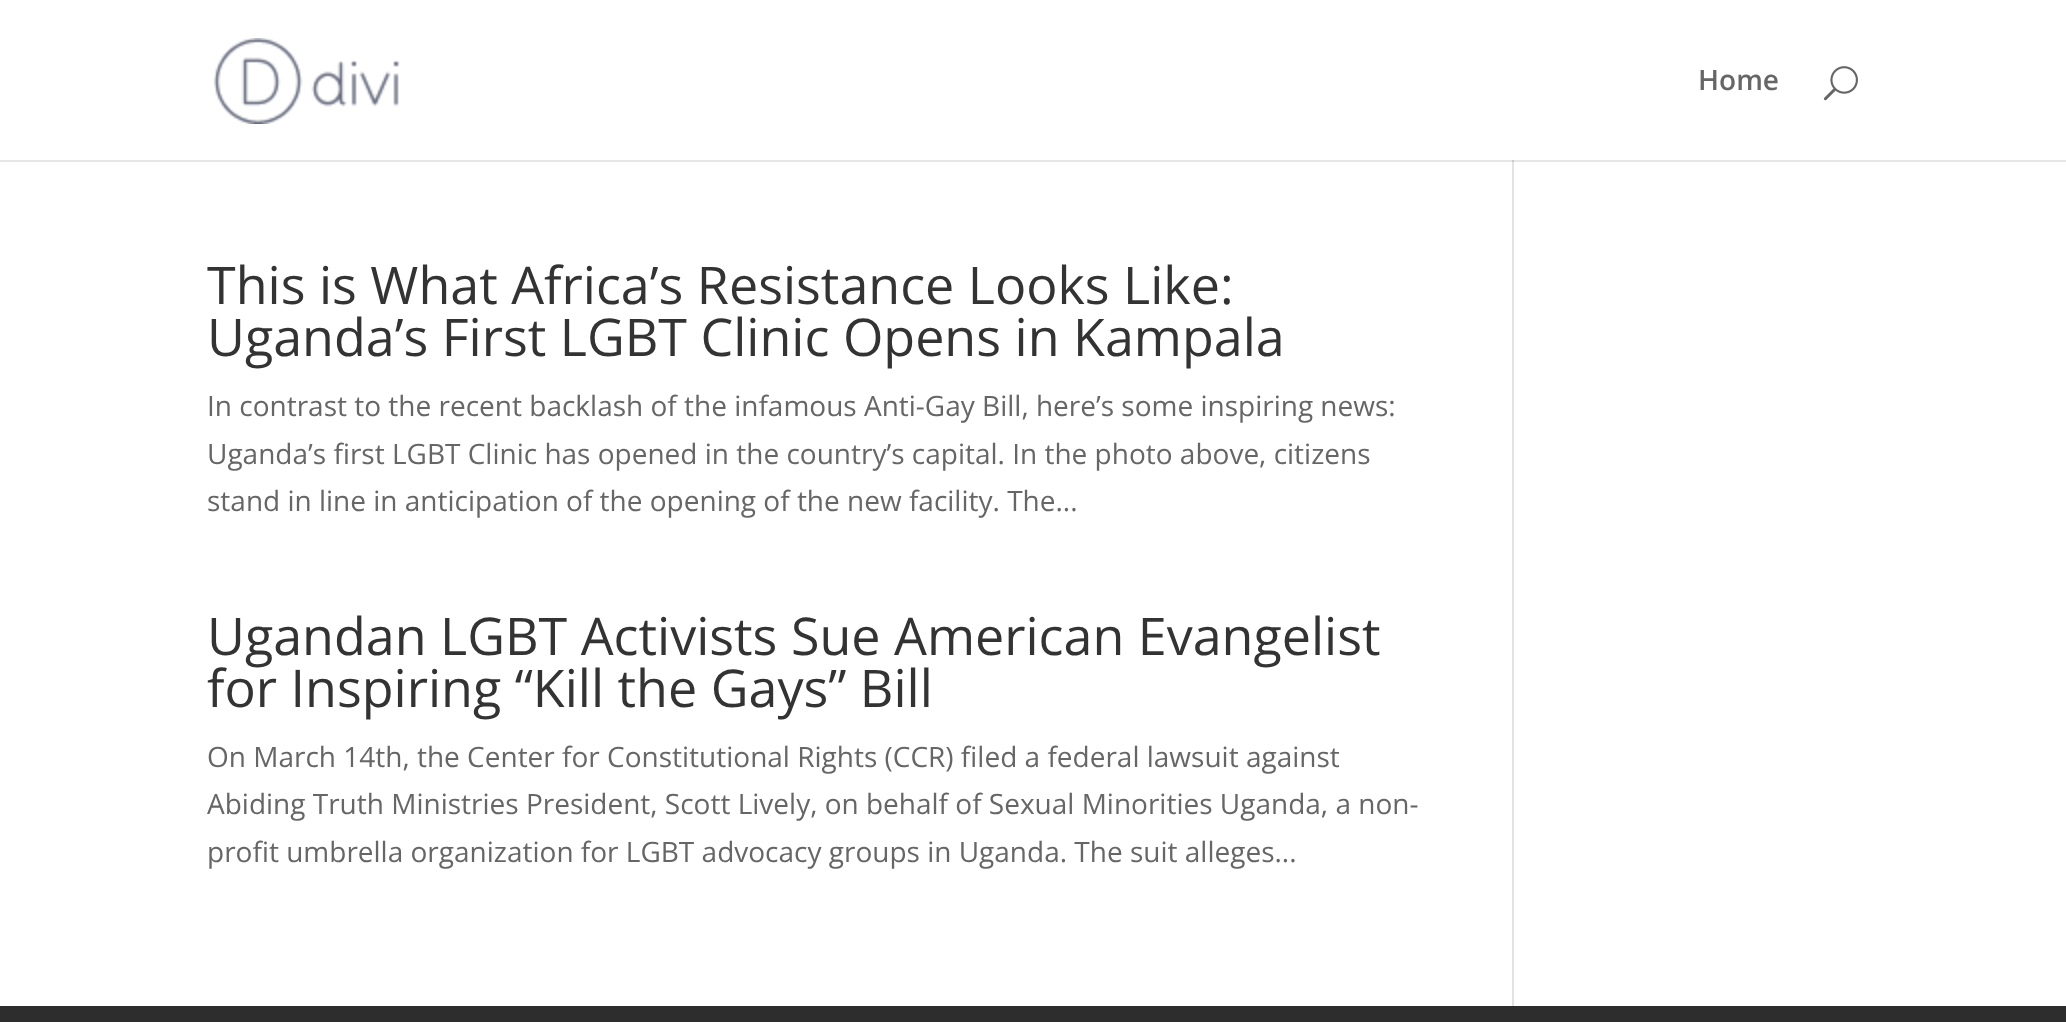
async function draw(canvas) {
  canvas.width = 2066
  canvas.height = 1022
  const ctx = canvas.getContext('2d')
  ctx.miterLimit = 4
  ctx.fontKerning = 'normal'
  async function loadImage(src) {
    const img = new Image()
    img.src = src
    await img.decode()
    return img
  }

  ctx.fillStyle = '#fff'
  ctx.fillRect(0, 0, 2066, 1022)
  ctx.fillStyle = '#e6e6e6'
  ctx.fillRect(0, 160, 2066, 2)
  ctx.drawImage(await loadImage('image0.png'), 214, 38, 186, 86)
  ctx.font = '600 28px Open Sans'
  ctx.fillStyle = '#666'
  ctx.fillText('Home', 1698, 90)
  ctx.drawImage(await loadImage('image1.png'), 1823, 66, 35, 35)
  ctx.font = '52px Open Sans'
  ctx.fillStyle = '#333'
  ctx.fillText('This is What Africa’s Resistance Looks Like:', 207, 304)
  ctx.fillText('Uganda’s First LGBT Clinic Opens in Kampala', 207, 356)
  ctx.font = '28px Open Sans'
  ctx.fillStyle = '#666'
  ctx.fillText('In contrast to the recent backlash of the infamous Anti-Gay Bill, here’s some inspiring news:', 207, 416)
  ctx.fillText('Uganda’s first LGBT Clinic has opened in the country’s capital. In the photo above, citizens', 207, 464)
  ctx.fillText('stand in line in anticipation of the opening of the new facility. The...', 207, 511)
  ctx.font = '52px Open Sans'
  ctx.fillStyle = '#333'
  ctx.fillText('Ugandan LGBT Activists Sue American Evangelist', 207, 655)
  ctx.fillText('for Inspiring “Kill the Gays” Bill', 207, 707)
  ctx.font = '28px Open Sans'
  ctx.fillStyle = '#666'
  ctx.fillText('On March 14th, the Center for Constitutional Rights (CCR) filed a federal lawsuit against', 207, 767)
  ctx.fillText('Abiding Truth Ministries President, Scott Lively, on behalf of Sexual Minorities Uganda, a non-', 207, 814)
  ctx.fillText('profit umbrella organization for LGBT advocacy groups in Uganda. The suit alleges...', 207, 862)
  ctx.fillStyle = '#e2e2e2'
  ctx.fillRect(1512, 162, 2, 844)
  ctx.fillStyle = '#cbcbcb'
  ctx.fillRect(1512, 160, 2, 2)
  ctx.fillStyle = '#2d2d2d'
  ctx.fillRect(0, 1006, 2066, 16)
}

draw(document.querySelector('canvas'))
